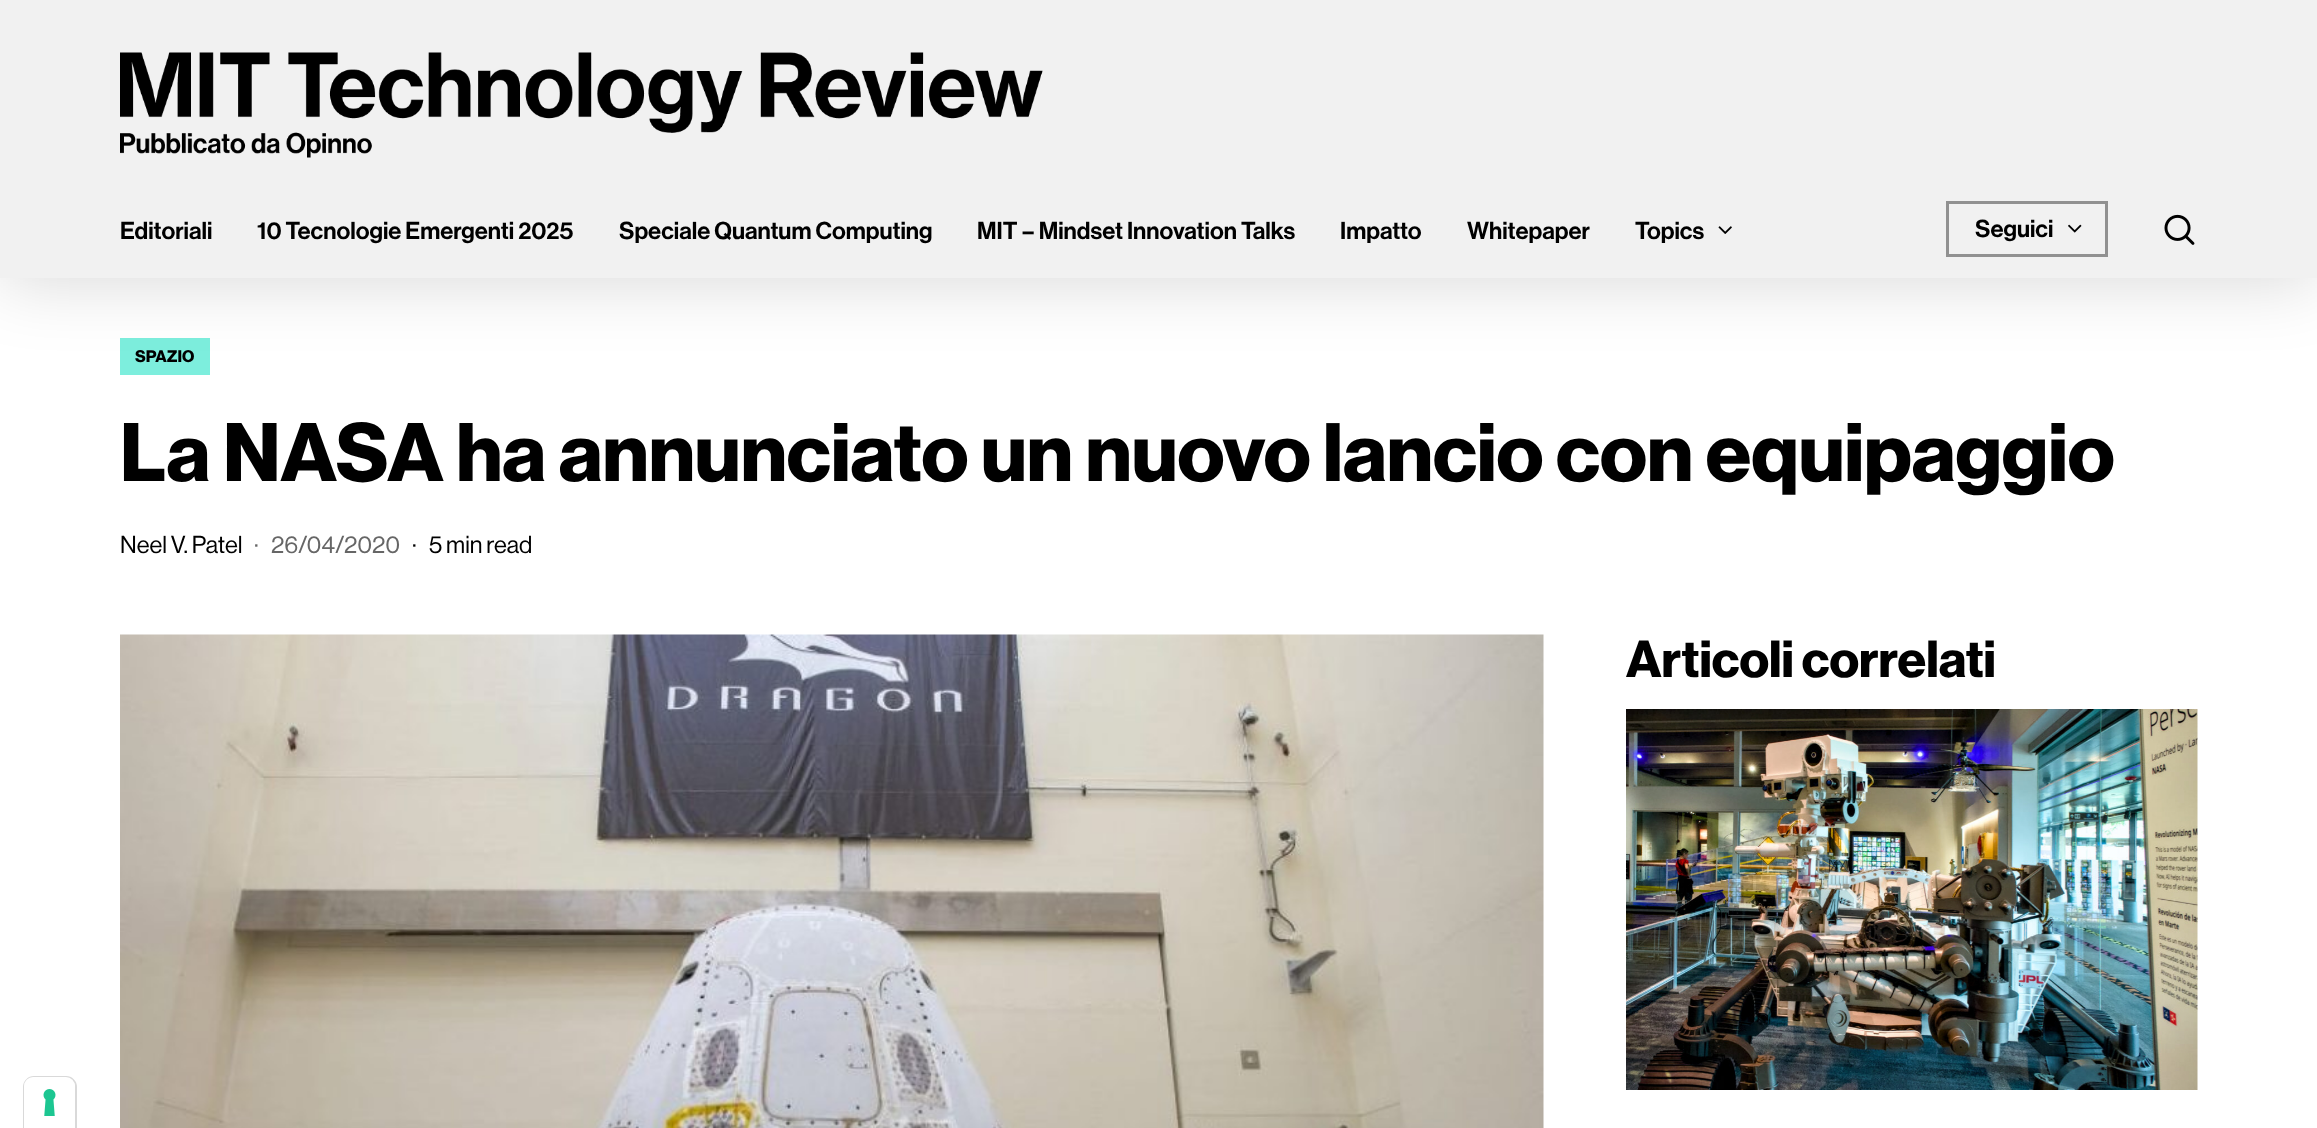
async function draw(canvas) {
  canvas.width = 2317
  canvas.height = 1128
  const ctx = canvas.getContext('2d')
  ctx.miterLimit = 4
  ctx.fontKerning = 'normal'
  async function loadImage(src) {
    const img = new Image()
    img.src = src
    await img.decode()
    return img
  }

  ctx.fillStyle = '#fff'
  ctx.fillRect(0, 0, 2317, 1128)
  ctx.fillStyle = '#7deedd'
  ctx.fillRect(120, 338, 90, 37)
  ctx.fillStyle = '#00000026'
  ctx.filter = 'blur(34px)'
  ctx.beginPath()
  ctx.rect(0, 5, 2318, 277)
  ctx.fill()
  ctx.filter = 'none'
  ctx.fillStyle = '#f1f1f1'
  ctx.fillRect(0, 0, 2317, 278)
  ctx.drawImage(await loadImage('image0.png'), 120, 52, 923, 106)
  ctx.font = '600 24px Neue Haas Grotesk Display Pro'
  ctx.fillStyle = '#000'
  ctx.fillText('Editoriali', 120, 239)
  ctx.fillText('10 Tecnologie Emergenti 2025', 257, 239)
  ctx.fillText('Speciale Quantum Computing', 619, 239)
  ctx.fillText('MIT – Mindset Innovation Talks', 977, 239)
  ctx.fillText('Impatto', 1340, 239)
  ctx.fillText('Whitepaper', 1467, 239)
  ctx.fillText('Topics', 1635, 239)
  ctx.drawImage(await loadImage('image1.png'), 1718, 226, 14, 8)
  ctx.strokeStyle = '#919191'
  ctx.lineWidth = 3
  ctx.strokeRect(1947.5, 202.5, 159, 53)
  ctx.fillText('Seguici', 1975, 237)
  ctx.drawImage(await loadImage('image2.png'), 2068, 224, 14, 9)
  ctx.drawImage(await loadImage('image3.png'), 2164, 214, 31, 31)
  ctx.font = 'bold 16.5px Neue Haas Grotesk Display Pro'
  ctx.fillText('SPAZIO', 135, 362)
  ctx.font = 'bold 81px Neue Haas Grotesk Display Pro'
  ctx.fillText('La NASA ha annunciato un nuovo lancio con equipaggio', 120, 481)
  ctx.font = '24px Neue Haas Grotesk Display Pro'
  ctx.fillText('Neel V. Patel', 120, 553)
  ctx.fillStyle = '#666'
  ctx.fillText('·', 254, 553)
  ctx.fillText('26/04/2020', 271, 553)
  ctx.fillStyle = '#000'
  ctx.fillText('·', 412, 553)
  ctx.fillText('5 min read', 429, 553)
  ctx.drawImage(await loadImage('image4.png'), 120, 634, 1424, 494)
  ctx.font = 'bold 51px Neue Haas Grotesk Display Pro'
  ctx.fillText('Articoli correlati', 1626, 677)
  ctx.drawImage(await loadImage('image5.png'), 1626, 709, 572, 381)
  ctx.beginPath()
  ctx.moveTo(34, 1077)
  ctx.lineTo(66, 1077)
  ctx.bezierCurveTo(71.5, 1077, 76, 1081.5, 76, 1087)
  ctx.lineTo(76, 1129)
  ctx.lineTo(24, 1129)
  ctx.lineTo(24, 1087)
  ctx.bezierCurveTo(24, 1081.5, 28.5, 1077, 34, 1077)
  ctx.closePath()
  ctx.strokeStyle = '#d9d9d9'
  ctx.lineWidth = 2
  ctx.stroke()
  ctx.fillStyle = '#fff'
  ctx.beginPath()
  ctx.roundRect(24, 1077, 51, 51, [9, 9, 0, 0])
  ctx.fill()
  ctx.drawImage(await loadImage('image6.png'), 43, 1089, 13, 27)
}

draw(document.querySelector('canvas'))
